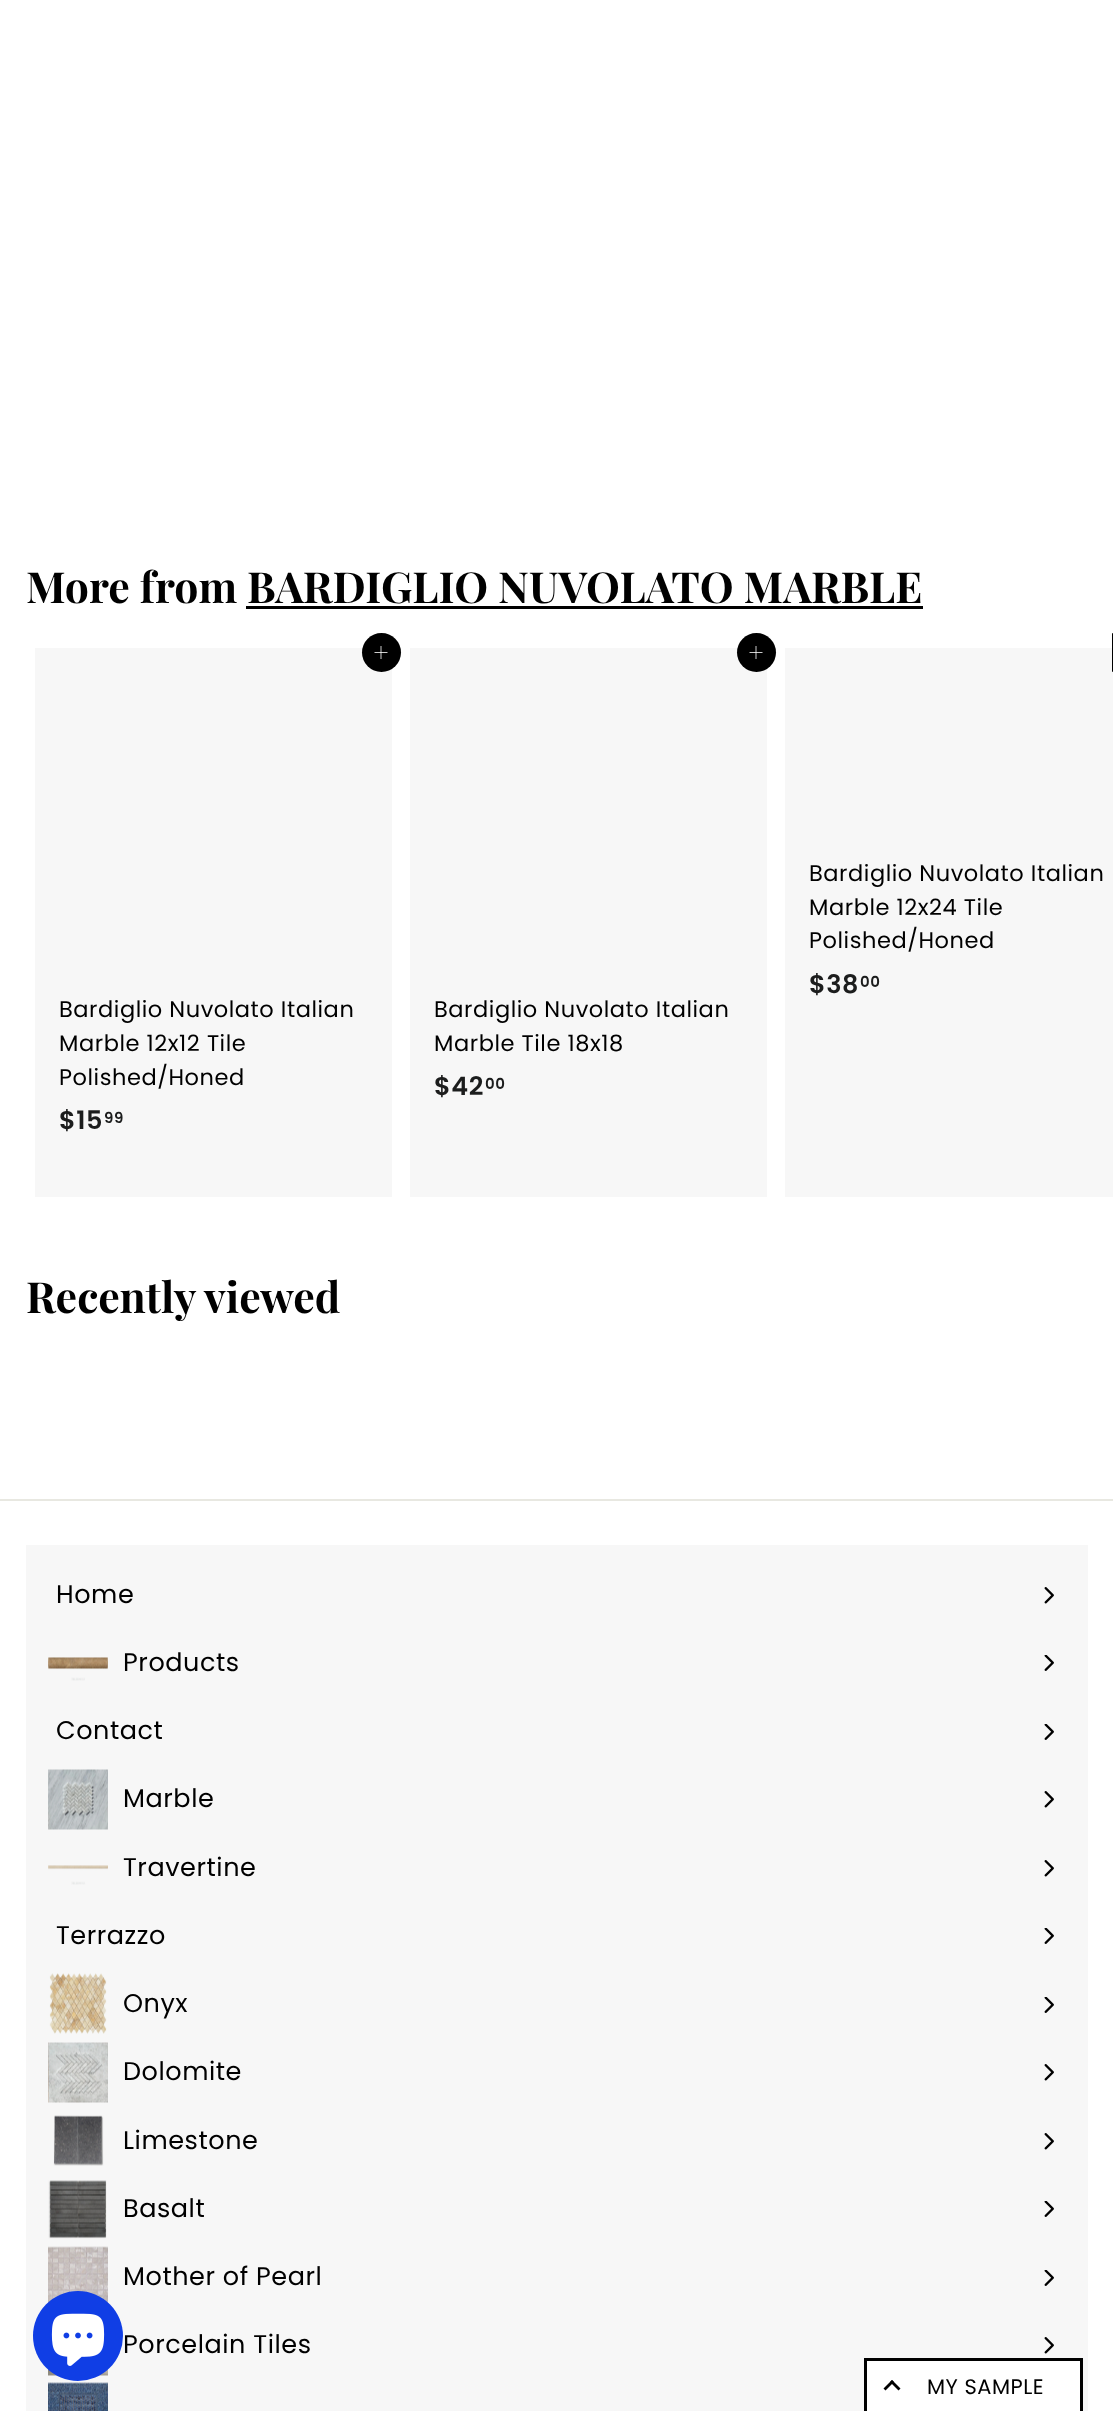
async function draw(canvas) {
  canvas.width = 1113
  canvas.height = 2411
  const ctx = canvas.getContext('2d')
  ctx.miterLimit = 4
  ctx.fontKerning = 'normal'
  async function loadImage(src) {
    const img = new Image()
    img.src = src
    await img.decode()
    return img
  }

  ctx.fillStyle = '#fff'
  ctx.fillRect(0, 0, 1113, 2411)
  ctx.fillStyle = '#f7f7f7'
  ctx.fillRect(26, 1545, 1062, 866)
  ctx.font = 'bold 42.75px Playfair Display'
  ctx.fillStyle = '#000'
  ctx.fillText('More from BARDIGLIO NUVOLATO MARBLE', 26, 603)
  ctx.fillRect(246, 606, 677, 3)
  ctx.fillStyle = '#00000008'
  ctx.fillRect(785, 648, 328, 549)
  ctx.fillStyle = '#000'
  ctx.beginPath()
  ctx.roundRect(1112, 633, 1, 39, [19.5, 0, 0, 19.5])
  ctx.fill()
  ctx.letterSpacing = '0.55px'
  ctx.font = '22.5px Poppins'
  ctx.fillText('Bardiglio Nuvolato Italian', 809, 881)
  ctx.fillText('Marble 12x24 Tile', 809, 915)
  ctx.fillText('Polished/Honed', 809, 948)
  ctx.font = '600 25.5px Poppins'
  ctx.fillStyle = '#1c1d1d'
  ctx.fillText('$38', 809, 993)
  ctx.font = '600 15px Poppins'
  ctx.fillText('00', 860, 987)
  ctx.fillStyle = '#00000008'
  ctx.fillRect(35, 648, 357, 549)
  ctx.fillStyle = '#000'
  ctx.beginPath()
  ctx.arc(381.5, 652.5, 19.5, 0, 2 * Math.PI)
  ctx.fill()
  ctx.beginPath()
  ctx.moveTo(381, 646)
  ctx.lineTo(381, 659)
  ctx.moveTo(387.5, 652.5)
  ctx.lineTo(374.5, 652.5)
  ctx.strokeStyle = '#fff'
  ctx.lineWidth = 0.8
  ctx.stroke()
  ctx.font = '22.5px Poppins'
  ctx.fillText('Bardiglio Nuvolato Italian', 59, 1017)
  ctx.fillText('Marble 12x12 Tile', 59, 1051)
  ctx.fillText('Polished/Honed', 59, 1085)
  ctx.font = '600 25.5px Poppins'
  ctx.fillStyle = '#1c1d1d'
  ctx.fillText('$15', 59, 1129)
  ctx.font = '600 15px Poppins'
  ctx.fillText('99', 104, 1123)
  ctx.fillStyle = '#00000008'
  ctx.fillRect(410, 648, 357, 549)
  ctx.fillStyle = '#000'
  ctx.beginPath()
  ctx.arc(756.5, 652.5, 19.5, 0, 2 * Math.PI)
  ctx.fill()
  ctx.beginPath()
  ctx.moveTo(756, 646)
  ctx.lineTo(756, 659)
  ctx.moveTo(762.5, 652.5)
  ctx.lineTo(749.5, 652.5)
  ctx.stroke()
  ctx.font = '22.5px Poppins'
  ctx.fillText('Bardiglio Nuvolato Italian', 434, 1017)
  ctx.fillText('Marble Tile 18x18', 434, 1051)
  ctx.font = '600 25.5px Poppins'
  ctx.fillStyle = '#1c1d1d'
  ctx.fillText('$42', 434, 1095)
  ctx.font = '600 15px Poppins'
  ctx.fillText('00', 485, 1089)
  ctx.letterSpacing = '0px'
  ctx.font = 'bold 42.75px Playfair Display'
  ctx.fillStyle = '#000'
  ctx.fillText('Recently viewed', 26, 1313)
  ctx.fillStyle = '#e8e8e1'
  ctx.fillRect(0, 1499, 1113, 2)
  ctx.letterSpacing = '0.55px'
  ctx.font = '25.5px Poppins'
  ctx.fillStyle = '#000'
  ctx.fillText('Home', 56, 1603)
  ctx.drawImage(await loadImage('image0.png'), 1044, 1587, 10, 17)
  ctx.drawImage(await loadImage('image1.png'), 48, 1657, 60, 24)
  ctx.fillText('Products', 123, 1671)
  ctx.drawImage(await loadImage('image2.png'), 1044, 1655, 10, 16)
  ctx.fillText('Contact', 56, 1739)
  ctx.drawImage(await loadImage('image2.png'), 1044, 1724, 10, 16)
  ctx.drawImage(await loadImage('image3.png'), 48, 1769, 60, 61)
  ctx.fillText('Marble', 123, 1807)
  ctx.drawImage(await loadImage('image0.png'), 1044, 1791, 10, 17)
  ctx.drawImage(await loadImage('image4.png'), 48, 1865, 60, 20)
  ctx.fillText('Travertine', 123, 1876)
  ctx.drawImage(await loadImage('image0.png'), 1044, 1860, 10, 17)
  ctx.fillText('Terrazzo', 56, 1944)
  ctx.drawImage(await loadImage('image2.png'), 1044, 1928, 10, 16)
  ctx.drawImage(await loadImage('image5.png'), 49, 1973, 58, 61)
  ctx.fillText('Onyx', 123, 2012)
  ctx.drawImage(await loadImage('image2.png'), 1044, 1997, 10, 16)
  ctx.drawImage(await loadImage('image6.png'), 48, 2042, 60, 61)
  ctx.fillText('Dolomite', 123, 2080)
  ctx.drawImage(await loadImage('image0.png'), 1044, 2064, 10, 17)
  ctx.drawImage(await loadImage('image7.png'), 53, 2115, 51, 51)
  ctx.fillText('Limestone', 123, 2149)
  ctx.drawImage(await loadImage('image0.png'), 1044, 2133, 10, 17)
  ctx.drawImage(await loadImage('image8.png'), 48, 2180, 59, 59)
  ctx.fillText('Basalt', 123, 2217)
  ctx.drawImage(await loadImage('image2.png'), 1044, 2201, 10, 16)
  ctx.drawImage(await loadImage('image9.png'), 48, 2246, 60, 57)
  ctx.fillText('Mother of Pearl', 123, 2285)
  ctx.drawImage(await loadImage('image2.png'), 1044, 2270, 10, 16)
  ctx.fillText('Porcelain Tiles', 123, 2353)
  ctx.drawImage(await loadImage('image0.png'), 1044, 2337, 10, 17)
  ctx.drawImage(await loadImage('image10.png'), 48, 2369, 60, 7)
  ctx.drawImage(await loadImage('image11.png'), 48, 2382, 60, 29)
  ctx.fillStyle = '#103ee5'
  ctx.beginPath()
  ctx.arc(78, 2336, 45, 0, 2 * Math.PI)
  ctx.fill()
  ctx.drawImage(await loadImage('image12.png'), 51, 2313, 54, 53)
  ctx.fillStyle = '#fff'
  ctx.fillRect(867, 2361, 213, 50)
  ctx.fillStyle = '#000'
  ctx.fillRect(864, 2358, 219, 3)
  ctx.fillRect(1080, 2358, 3, 53)
  ctx.fillRect(864, 2358, 3, 53)
  ctx.beginPath()
  ctx.moveTo(892, 2380)
  ctx.lineTo(900.5, 2388.5)
  ctx.lineTo(898.5, 2390.5)
  ctx.lineTo(890, 2382)
  ctx.closePath()
  ctx.fill()
  ctx.beginPath()
  ctx.moveTo(892, 2380)
  ctx.lineTo(894, 2382)
  ctx.lineTo(885.5, 2390.5)
  ctx.lineTo(883.5, 2388.5)
  ctx.closePath()
  ctx.fill()
  ctx.letterSpacing = '0.5px'
  ctx.font = '21px Poppins'
  ctx.fillText('MY SAMPLE', 927, 2394)
}

draw(document.querySelector('canvas'))
